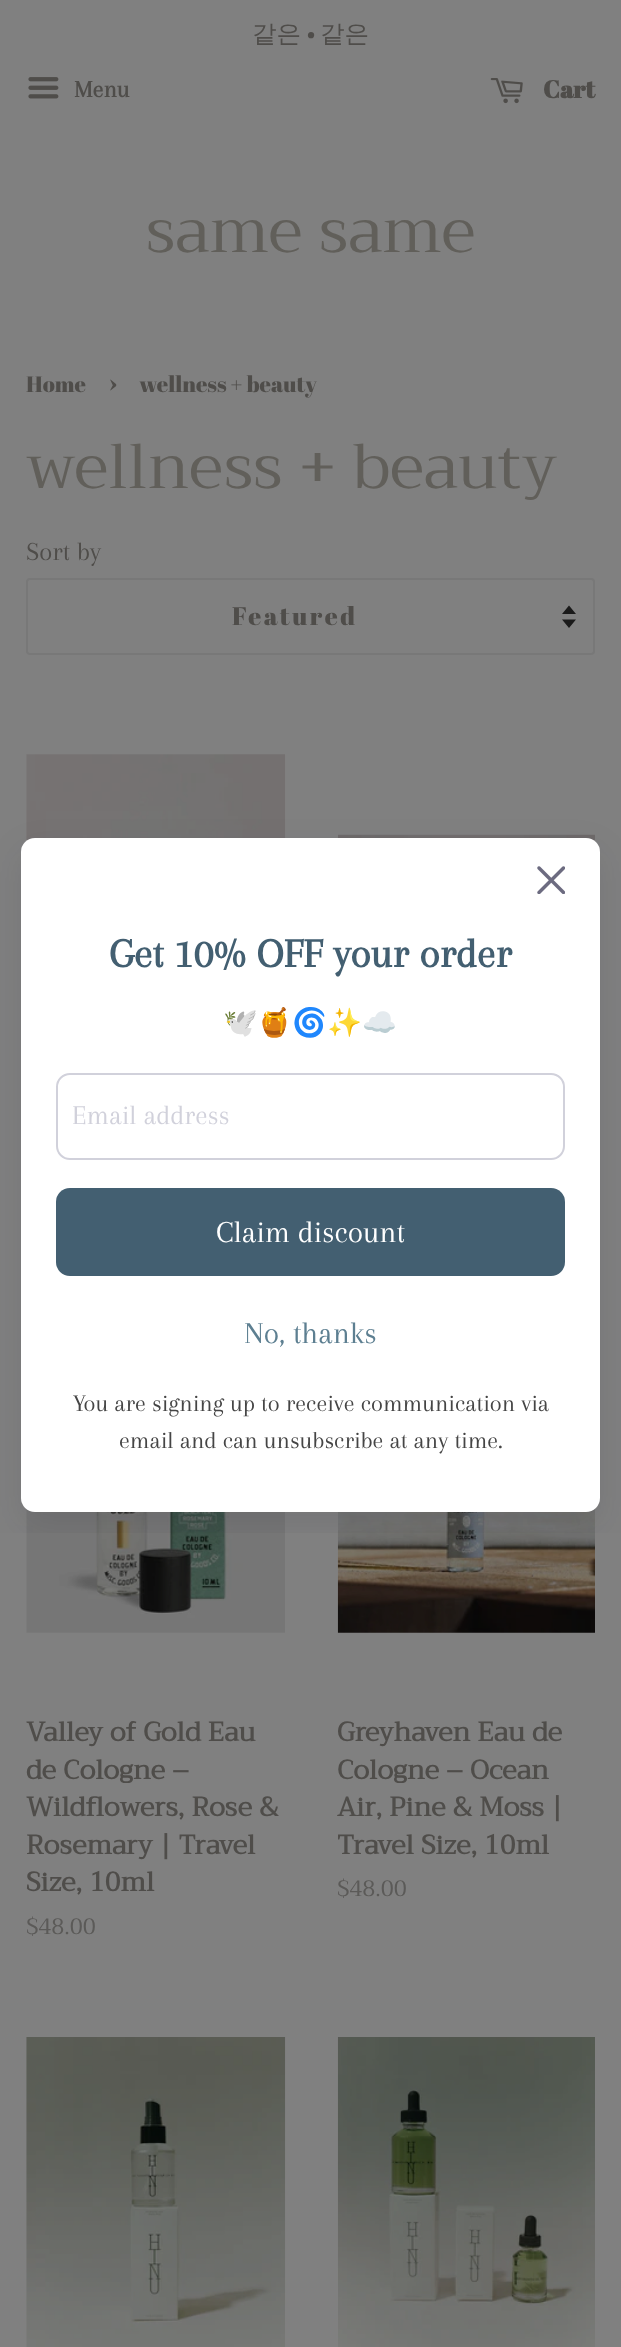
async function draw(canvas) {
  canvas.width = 621
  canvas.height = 2347
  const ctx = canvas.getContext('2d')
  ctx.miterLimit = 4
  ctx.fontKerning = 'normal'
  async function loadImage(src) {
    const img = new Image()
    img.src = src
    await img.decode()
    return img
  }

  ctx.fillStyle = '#808080'
  ctx.fillRect(0, 0, 621, 2347)
  ctx.font = '500 24.5px WenQuanYi Zen Hei'
  ctx.fillStyle = '#4f4d4a'
  ctx.fillText('같은', 252, 42)
  ctx.font = '24.5px Abril Fatface'
  ctx.fillText('•', 306, 42)
  ctx.font = '500 24.5px WenQuanYi Zen Hei'
  ctx.fillText('같은', 320, 42)
  ctx.drawImage(await loadImage('image0.png'), 28, 77, 31, 22)
  ctx.font = 'bold 24.5px Arapey'
  ctx.fillText('Menu', 74, 97)
  ctx.drawImage(await loadImage('image1.png'), 490, 78, 33, 26)
  ctx.font = 'bold 24.5px Abril Fatface'
  ctx.fillText('Cart', 543, 98)
  ctx.font = '63px Trirong'
  ctx.fillStyle = '#615f5a'
  ctx.fillText('same same', 146, 252)
  ctx.font = '22.25px Abril Fatface'
  ctx.fillStyle = '#4f4d4a'
  ctx.fillText('Home', 26, 392)
  ctx.font = '31px Abril Fatface'
  ctx.fillText('›', 108, 392)
  ctx.font = '22.25px Abril Fatface'
  ctx.fillText('wellness + beauty', 139, 392)
  ctx.font = '63px Trirong'
  ctx.fillStyle = '#615f5a'
  ctx.fillText('wellness + beauty', 26, 488)
  ctx.font = '26.75px Arapey'
  ctx.fillStyle = '#4f4d4a'
  ctx.fillText('Sort by', 26, 560)
  ctx.fillStyle = '#1a1a1a'
  ctx.beginPath()
  ctx.moveTo(562, 619.5)
  ctx.lineTo(569, 628)
  ctx.lineTo(576, 619.5)
  ctx.closePath()
  ctx.moveTo(569, 605.5)
  ctx.lineTo(562, 614)
  ctx.lineTo(576, 614)
  ctx.closePath()
  ctx.fill()
  ctx.beginPath()
  ctx.roundRect(27, 579, 567, 75, 3)
  ctx.strokeStyle = '#787878'
  ctx.lineWidth = 2
  ctx.stroke()
  ctx.letterSpacing = '2.5px'
  ctx.font = '25.25px Abril Fatface'
  ctx.fillStyle = '#4f4d4a'
  ctx.fillText('Featured', 232, 625)
  ctx.drawImage(await loadImage('image2.png'), 26, 754, 260, 88)
  ctx.drawImage(await loadImage('image3.png'), 338, 834, 257, 8)
  ctx.drawImage(await loadImage('image4.png'), 26, 1508, 259, 125)
  ctx.letterSpacing = '0px'
  ctx.font = 'bold 26.75px Trirong'
  ctx.fillText('Valley of Gold Eau', 26, 1741)
  ctx.fillText('de Cologne –', 26, 1779)
  ctx.fillText('Wildflowers, Rose &', 26, 1816)
  ctx.fillText('Rosemary | Travel', 26, 1854)
  ctx.fillText('Size, 10ml', 26, 1891)
  ctx.font = '22.25px Trirong'
  ctx.fillStyle = '#5b5a58'
  ctx.fillText('$48.00', 26, 1934)
  ctx.drawImage(await loadImage('image5.png'), 337, 1508, 258, 125)
  ctx.font = 'bold 26.75px Trirong'
  ctx.fillStyle = '#4f4d4a'
  ctx.fillText('Greyhaven Eau de', 337, 1741)
  ctx.fillText('Cologne – Ocean', 337, 1779)
  ctx.fillText('Air, Pine & Moss |', 337, 1816)
  ctx.fillText('Travel Size, 10ml', 337, 1854)
  ctx.font = '22.25px Trirong'
  ctx.fillStyle = '#5b5a58'
  ctx.fillText('$48.00', 337, 1896)
  ctx.drawImage(await loadImage('image6.png'), 26, 2037, 260, 310)
  ctx.drawImage(await loadImage('image7.png'), 337, 2037, 258, 310)
  ctx.save()
  ctx.beginPath()
  ctx.rect(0, 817, 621, 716)
  ctx.clip()
  ctx.fillStyle = '#1211271a'
  ctx.filter = 'blur(17.5px)'
  ctx.beginPath()
  ctx.roundRect(21, 852, 579, 674, 14)
  ctx.fill()
  ctx.filter = 'none'
  ctx.restore()
  ctx.fillStyle = '#fff'
  ctx.beginPath()
  ctx.roundRect(21, 838, 579, 674, 14)
  ctx.fill()
  ctx.drawImage(await loadImage('image8.png'), 537, 866, 28, 28)
  ctx.font = 'bold 42px Arapey'
  ctx.fillStyle = '#435f71'
  ctx.fillText('Get 10% OFF your order', 109, 967)
  ctx.font = '28px Noto Color Emoji'
  ctx.fillStyle = '#454545'
  ctx.fillText('🕊️🍯🌀✨☁️', 223, 1032)
  ctx.beginPath()
  ctx.roundRect(57, 1074, 507, 85, 13)
  ctx.strokeStyle = '#d1d1db'
  ctx.stroke()
  ctx.font = '28px Arapey'
  ctx.fillStyle = '#d1d1db'
  ctx.fillText('Email address', 72, 1124)
  ctx.fillStyle = '#435f71'
  ctx.beginPath()
  ctx.roundRect(56, 1188, 509, 88, 14)
  ctx.fill()
  ctx.font = '31.5px Arapey'
  ctx.fillStyle = '#fff'
  ctx.fillText('Claim discount', 216, 1242)
  ctx.fillStyle = '#5d7f91'
  ctx.fillText('No, thanks', 244, 1343)
  ctx.font = '24.5px Arapey'
  ctx.fillStyle = '#454545'
  ctx.fillText('You are signing up to receive communication via', 73, 1411)
  ctx.fillText('email and can unsubscribe at any time.', 119, 1448)
}

draw(document.querySelector('canvas'))
